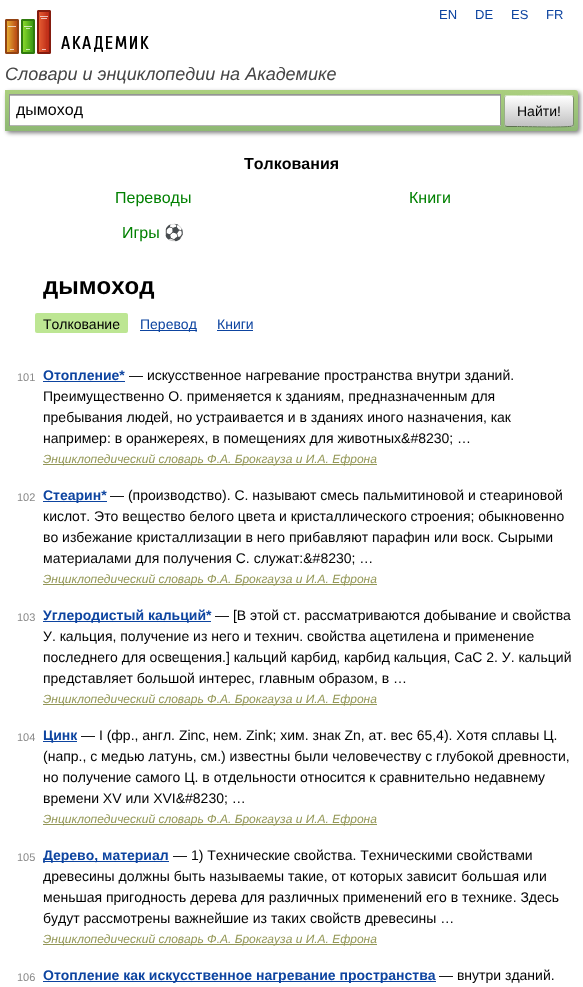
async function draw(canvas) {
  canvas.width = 583
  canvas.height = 987
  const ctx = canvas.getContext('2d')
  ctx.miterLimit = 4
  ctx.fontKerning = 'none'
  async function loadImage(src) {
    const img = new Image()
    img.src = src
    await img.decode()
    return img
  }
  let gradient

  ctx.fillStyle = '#fff'
  ctx.fillRect(0, 0, 583, 987)
  ctx.drawImage(await loadImage('image0.png'), 5, 10, 144, 44)
  ctx.font = '13px Liberation Sans'
  ctx.fillStyle = '#0d44a0'
  ctx.fillText('EN', 439, 19)
  ctx.fillText('DE', 475, 19)
  ctx.fillText('ES', 511, 19)
  ctx.fillText('FR', 546, 19)
  ctx.font = 'italic 18px Liberation Sans'
  ctx.fillStyle = '#454545'
  ctx.fillText('Словари и энциклопедии на Академике', 5, 80)
  ctx.fillStyle = '#00000080'
  ctx.filter = 'blur(2px)'
  ctx.beginPath()
  ctx.roundRect(7, 92, 573, 41, 3)
  ctx.fill()
  ctx.filter = 'none'
  gradient = ctx.createLinearGradient(292, 90, 292, 131)
  gradient.addColorStop(0, '#abcf7e')
  gradient.addColorStop(1, '#8eb874')
  ctx.fillStyle = gradient
  ctx.beginPath()
  ctx.roundRect(5, 90, 573, 41, [0, 3, 3, 0])
  ctx.fill()
  ctx.fillStyle = '#fff'
  ctx.fillRect(10, 96, 490, 29)
  ctx.fillStyle = '#b3b3b3'
  ctx.fillRect(10, 95, 490, 1)
  ctx.fillStyle = '#949494'
  ctx.fillRect(9, 94, 492, 1)
  ctx.fillRect(500, 94, 1, 32)
  ctx.fillStyle = '#b4b4b4'
  ctx.fillRect(9, 125, 492, 1)
  ctx.fillStyle = '#949494'
  ctx.fillRect(9, 94, 1, 32)
  ctx.font = '16px Liberation Sans'
  ctx.fillStyle = '#000'
  ctx.fillText('дымоход', 16, 115)
  ctx.save()
  ctx.beginPath()
  ctx.roundRect(504, 95, 70, 32, 3)
  ctx.clip()
  gradient = ctx.createLinearGradient(539, 66, 539, 96)
  gradient.addColorStop(0, '#fff')
  gradient.addColorStop(1, '#c1c1c1')
  ctx.fillStyle = gradient
  ctx.fillRect(504, 95, 70, 1)
  gradient = ctx.createLinearGradient(539, 96, 539, 126)
  gradient.addColorStop(0, '#fff')
  gradient.addColorStop(1, '#c1c1c1')
  ctx.fillStyle = gradient
  ctx.fillRect(504, 96, 70, 30)
  gradient = ctx.createLinearGradient(539, 126, 539, 156)
  gradient.addColorStop(0, '#fff')
  gradient.addColorStop(1, '#c1c1c1')
  ctx.fillStyle = gradient
  ctx.fillRect(504, 126, 70, 1)
  ctx.restore()
  ctx.beginPath()
  ctx.moveTo(505, 96)
  ctx.lineTo(507, 95.5)
  ctx.lineTo(517.5, 95.5)
  ctx.bezierCurveTo(524, 95.5, 570.5, 94.5, 572.5, 96)
  ctx.lineTo(573, 96)
  ctx.strokeStyle = '#d1e4bc'
  ctx.stroke()
  ctx.beginPath()
  ctx.moveTo(573, 96)
  ctx.bezierCurveTo(573, 96.5, 573.5, 97.5, 573.5, 98)
  ctx.lineTo(573.5, 124)
  ctx.bezierCurveTo(573.5, 124.5, 573, 125.5, 573, 126)
  ctx.strokeStyle = '#7a8e69'
  ctx.stroke()
  ctx.beginPath()
  ctx.moveTo(573, 126)
  ctx.lineTo(572.5, 126)
  ctx.bezierCurveTo(570.5, 127.5, 524, 126.5, 517.5, 126.5)
  ctx.lineTo(507, 126.5)
  ctx.lineTo(505, 126)
  ctx.strokeStyle = '#5d7250'
  ctx.stroke()
  ctx.beginPath()
  ctx.moveTo(505, 126)
  ctx.bezierCurveTo(505, 125.5, 504.5, 124.5, 504.5, 124)
  ctx.lineTo(504.5, 98)
  ctx.bezierCurveTo(504.5, 97.5, 505, 96.5, 505, 96)
  ctx.strokeStyle = '#9aae89'
  ctx.stroke()
  ctx.font = '14px Liberation Sans'
  ctx.fillText('Найти!', 517, 116)
  ctx.font = 'bold 16px Liberation Sans'
  ctx.fillText('Толкования', 244, 169)
  ctx.font = '16px Liberation Sans'
  ctx.fillStyle = '#008000'
  ctx.fillText('Переводы', 115, 203)
  ctx.fillText('Книги', 409, 203)
  ctx.fillText('Игры', 122, 238)
  ctx.font = '16px Noto Color Emoji'
  ctx.fillText('⚽', 164, 238)
  ctx.font = 'bold 24px Liberation Sans'
  ctx.fillStyle = '#000'
  ctx.fillText('дымоход', 43, 294)
  ctx.fillStyle = '#bde693'
  ctx.beginPath()
  ctx.roundRect(35, 313, 93, 20, 2)
  ctx.fill()
  ctx.font = '14px Liberation Sans'
  ctx.fillStyle = '#000'
  ctx.fillText('Толкование', 43, 329)
  ctx.fillStyle = '#0d44a0'
  ctx.fillRect(140, 330, 57, 1)
  ctx.fillText('Перевод', 140, 329)
  ctx.fillText('Книги', 217, 329)
  ctx.fillRect(217, 330, 36, 1)
  ctx.font = '11px Liberation Sans'
  ctx.fillStyle = '#898989'
  ctx.fillText('101', 17, 381)
  ctx.font = 'bold 14px Liberation Sans'
  ctx.fillStyle = '#0d44a0'
  ctx.fillText('Отопление*', 43, 380)
  ctx.fillRect(43, 381, 82, 1)
  ctx.font = '14px Liberation Sans'
  ctx.fillStyle = '#000'
  ctx.fillText('— искусственное нагревание пространства внутри зданий.', 129, 380)
  ctx.fillText('Преимущественно О. применяется к зданиям, предназначенным для', 43, 401)
  ctx.fillText('пребывания людей, но устраивается и в зданиях иного назначения, как', 43, 422)
  ctx.fillText('например: в оранжереях, в помещениях для животных&#8230; …', 43, 443)
  ctx.fillStyle = '#939756'
  ctx.fillRect(43, 464, 334, 1)
  ctx.font = 'italic 12px Liberation Sans'
  ctx.fillText('Энциклопедический словарь Ф.А. Брокгауза и И.А. Ефрона', 43, 463)
  ctx.font = '11px Liberation Sans'
  ctx.fillStyle = '#898989'
  ctx.fillText('102', 17, 501)
  ctx.fillStyle = '#0d44a0'
  ctx.fillRect(43, 501, 64, 1)
  ctx.font = 'bold 14px Liberation Sans'
  ctx.fillText('Стеарин*', 43, 500)
  ctx.font = '14px Liberation Sans'
  ctx.fillStyle = '#000'
  ctx.fillText('— (производство). С. называют смесь пальмитиновой и стеариновой', 110, 500)
  ctx.fillText('кислот. Это вещество белого цвета', 43, 521)
  ctx.fillText('и кристаллического строения; обыкновенно', 279, 521)
  ctx.fillText('во избежание кристаллизации в него прибавляют парафин или воск. Сырыми', 43, 542)
  ctx.fillText('материалами для получения С. служат:&#8230; …', 43, 563)
  ctx.fillStyle = '#939756'
  ctx.fillRect(43, 584, 334, 1)
  ctx.font = 'italic 12px Liberation Sans'
  ctx.fillText('Энциклопедический словарь Ф.А. Брокгауза и И.А. Ефрона', 43, 583)
  ctx.font = '11px Liberation Sans'
  ctx.fillStyle = '#898989'
  ctx.fillText('103', 17, 621)
  ctx.fillStyle = '#0d44a0'
  ctx.fillRect(43, 621, 168, 1)
  ctx.font = 'bold 14px Liberation Sans'
  ctx.fillText('Углеродистый кальций*', 43, 620)
  ctx.font = '14px Liberation Sans'
  ctx.fillStyle = '#000'
  ctx.fillText('— [В этой ст. рассматриваются', 215, 620)
  ctx.fillText('добывание и свойства', 424, 620)
  ctx.fillText('У. кальция, получение из него и технич. свойства ацетилена', 43, 641)
  ctx.fillText('и применение', 443, 641)
  ctx.fillText('последнего для освещения.] кальций карбид, карбид кальция, СаС 2. У. кальций', 43, 662)
  ctx.fillText('представляет большой интерес, главным образом, в …', 43, 683)
  ctx.fillStyle = '#939756'
  ctx.fillRect(43, 704, 334, 1)
  ctx.font = 'italic 12px Liberation Sans'
  ctx.fillText('Энциклопедический словарь Ф.А. Брокгауза и И.А. Ефрона', 43, 703)
  ctx.font = '11px Liberation Sans'
  ctx.fillStyle = '#898989'
  ctx.fillText('104', 17, 741)
  ctx.fillStyle = '#0d44a0'
  ctx.fillRect(43, 741, 34, 1)
  ctx.font = 'bold 14px Liberation Sans'
  ctx.fillText('Цинк', 43, 740)
  ctx.font = '14px Liberation Sans'
  ctx.fillStyle = '#000'
  ctx.fillText('— I (фр., англ. Zinc, нем. Zink; хим. знак Zn, ат. вес 65,4). Хотя сплавы Ц.', 81, 740)
  ctx.fillText('(напр., с медью латунь, см.) известны были человечеству с глубокой древности,', 43, 761)
  ctx.fillText('но получение самого Ц. в отдельности относится к сравнительно недавнему', 43, 782)
  ctx.fillText('времени XV или XVI&#8230; …', 43, 803)
  ctx.fillStyle = '#939756'
  ctx.fillRect(43, 824, 334, 1)
  ctx.font = 'italic 12px Liberation Sans'
  ctx.fillText('Энциклопедический словарь Ф.А. Брокгауза и И.А. Ефрона', 43, 823)
  ctx.font = '11px Liberation Sans'
  ctx.fillStyle = '#898989'
  ctx.fillText('105', 17, 861)
  ctx.fillStyle = '#0d44a0'
  ctx.fillRect(43, 861, 126, 1)
  ctx.font = 'bold 14px Liberation Sans'
  ctx.fillText('Дерево, материал', 43, 860)
  ctx.font = '14px Liberation Sans'
  ctx.fillStyle = '#000'
  ctx.fillText('— 1) Технические свойства. Техническими свойствами', 173, 860)
  ctx.fillText('древесины должны быть называемы такие, от которых зависит большая или', 43, 881)
  ctx.fillText('меньшая пригодность дерева для различных применений его в технике. Здесь', 43, 902)
  ctx.fillText('будут рассмотрены важнейшие из таких свойств древесины …', 43, 923)
  ctx.fillStyle = '#939756'
  ctx.fillRect(43, 944, 334, 1)
  ctx.font = 'italic 12px Liberation Sans'
  ctx.fillText('Энциклопедический словарь Ф.А. Брокгауза и И.А. Ефрона', 43, 943)
  ctx.font = '11px Liberation Sans'
  ctx.fillStyle = '#898989'
  ctx.fillText('106', 17, 981)
  ctx.fillStyle = '#0d44a0'
  ctx.fillRect(43, 981, 393, 1)
  ctx.font = 'bold 14px Liberation Sans'
  ctx.fillText('Отопление как искусственное нагревание пространства', 43, 980)
  ctx.font = '14px Liberation Sans'
  ctx.fillStyle = '#000'
  ctx.fillText('— внутри зданий.', 439, 980)
}

draw(document.querySelector('canvas'))
